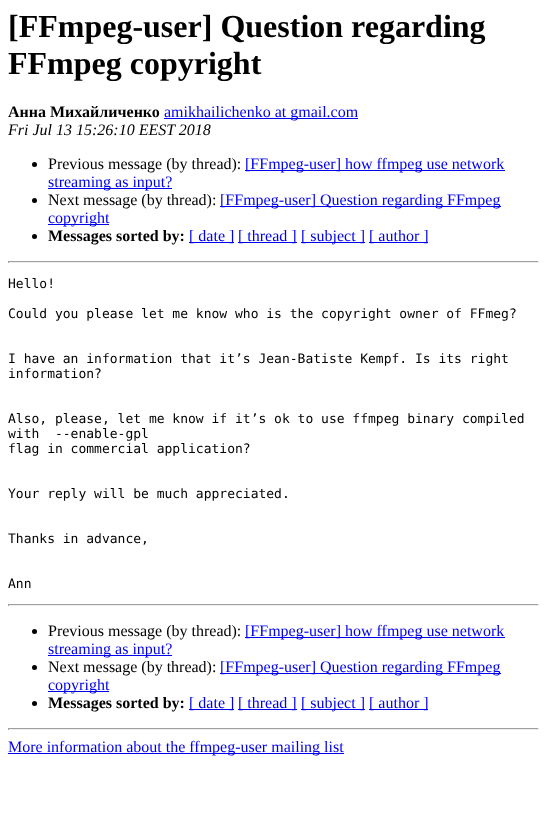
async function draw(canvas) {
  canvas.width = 547
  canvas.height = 833
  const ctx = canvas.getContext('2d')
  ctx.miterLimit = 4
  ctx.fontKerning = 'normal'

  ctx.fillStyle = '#fff'
  ctx.fillRect(0, 0, 547, 833)
  ctx.font = 'bold 32px Liberation Serif'
  ctx.fillStyle = '#000'
  ctx.fillText('[FFmpeg-user] Question regarding', 8, 37)
  ctx.fillText('FFmpeg copyright', 8, 74)
  ctx.font = 'bold 16px Liberation Serif'
  ctx.fillText('Анна Михайличенко', 8, 117)
  ctx.fillStyle = '#00e'
  ctx.fillRect(164, 118, 194, 1)
  ctx.font = '16px Liberation Serif'
  ctx.fillText('amikhailichenko at gmail.com', 164, 117)
  ctx.font = 'italic 16px Liberation Serif'
  ctx.fillStyle = '#000'
  ctx.fillText('Fri Jul 13 15:26:10 EEST 2018', 8, 135)
  ctx.beginPath()
  ctx.arc(34.5, 164.5, 2.5, 0, 2 * Math.PI)
  ctx.fill()
  ctx.font = '16px Liberation Serif'
  ctx.fillText('Previous message (by thread):', 48, 169)
  ctx.fillStyle = '#00e'
  ctx.fillRect(245, 170, 260, 1)
  ctx.fillText('[FFmpeg-user] how ffmpeg use network', 245, 169)
  ctx.fillRect(48, 188, 124, 1)
  ctx.fillText('streaming as input?', 48, 187)
  ctx.fillStyle = '#000'
  ctx.beginPath()
  ctx.arc(34.5, 200.5, 2.5, 0, 2 * Math.PI)
  ctx.fill()
  ctx.fillText('Next message (by thread):', 48, 205)
  ctx.fillStyle = '#00e'
  ctx.fillRect(220, 206, 281, 1)
  ctx.fillText('[FFmpeg-user] Question regarding FFmpeg', 220, 205)
  ctx.fillRect(48, 224, 61, 1)
  ctx.fillText('copyright', 48, 223)
  ctx.fillStyle = '#000'
  ctx.beginPath()
  ctx.arc(34.5, 236.5, 2.5, 0, 2 * Math.PI)
  ctx.fill()
  ctx.font = 'bold 16px Liberation Serif'
  ctx.fillText('Messages sorted by:', 48, 241)
  ctx.fillStyle = '#00e'
  ctx.fillRect(189, 242, 45, 1)
  ctx.font = '16px Liberation Serif'
  ctx.fillText('[ date ]', 189, 241)
  ctx.fillRect(238, 242, 59, 1)
  ctx.fillText('[ thread ]', 238, 241)
  ctx.fillRect(301, 242, 64, 1)
  ctx.fillText('[ subject ]', 301, 241)
  ctx.fillRect(369, 242, 59, 1)
  ctx.fillText('[ author ]', 369, 241)
  ctx.fillStyle = '#9f9f9f'
  ctx.fillRect(8, 261, 531, 1)
  ctx.fillStyle = '#eee'
  ctx.fillRect(538, 261, 1, 2)
  ctx.fillRect(8, 262, 531, 1)
  ctx.fillStyle = '#9f9f9f'
  ctx.fillRect(8, 261, 1, 2)
  ctx.font = '13px DejaVu Sans Mono'
  ctx.fillStyle = '#000'
  ctx.fillText('Hello!', 8, 288)
  ctx.fillText('Could you please let me know who is the copyright owner of FFmeg?', 8, 318)
  ctx.fillText('I have an information that it’s Jean-Batiste Kempf. Is its right', 8, 363)
  ctx.fillText('information?', 8, 378)
  ctx.fillText('Also, please, let me know if it’s ok to use ffmpeg binary compiled', 8, 423)
  ctx.fillText('with  --enable-gpl', 8, 438)
  ctx.fillText('flag in commercial application?', 8, 453)
  ctx.fillText('Your reply will be much appreciated.', 8, 498)
  ctx.fillText('Thanks in advance,', 8, 543)
  ctx.fillText('Ann', 8, 588)
  ctx.fillStyle = '#9f9f9f'
  ctx.fillRect(8, 604, 531, 1)
  ctx.fillStyle = '#eee'
  ctx.fillRect(538, 604, 1, 2)
  ctx.fillRect(8, 605, 531, 1)
  ctx.fillStyle = '#9f9f9f'
  ctx.fillRect(8, 604, 1, 2)
  ctx.fillStyle = '#000'
  ctx.beginPath()
  ctx.arc(34.5, 631.5, 2.5, 0, 2 * Math.PI)
  ctx.fill()
  ctx.font = '16px Liberation Serif'
  ctx.fillText('Previous message (by thread):', 48, 636)
  ctx.fillStyle = '#00e'
  ctx.fillRect(245, 637, 260, 1)
  ctx.fillText('[FFmpeg-user] how ffmpeg use network', 245, 636)
  ctx.fillRect(48, 655, 124, 1)
  ctx.fillText('streaming as input?', 48, 654)
  ctx.fillStyle = '#000'
  ctx.beginPath()
  ctx.arc(34.5, 667.5, 2.5, 0, 2 * Math.PI)
  ctx.fill()
  ctx.fillText('Next message (by thread):', 48, 672)
  ctx.fillStyle = '#00e'
  ctx.fillRect(220, 673, 281, 1)
  ctx.fillText('[FFmpeg-user] Question regarding FFmpeg', 220, 672)
  ctx.fillRect(48, 691, 61, 1)
  ctx.fillText('copyright', 48, 690)
  ctx.fillStyle = '#000'
  ctx.beginPath()
  ctx.arc(34.5, 703.5, 2.5, 0, 2 * Math.PI)
  ctx.fill()
  ctx.font = 'bold 16px Liberation Serif'
  ctx.fillText('Messages sorted by:', 48, 708)
  ctx.fillStyle = '#00e'
  ctx.fillRect(189, 709, 45, 1)
  ctx.font = '16px Liberation Serif'
  ctx.fillText('[ date ]', 189, 708)
  ctx.fillRect(238, 709, 59, 1)
  ctx.fillText('[ thread ]', 238, 708)
  ctx.fillRect(301, 709, 64, 1)
  ctx.fillText('[ subject ]', 301, 708)
  ctx.fillRect(369, 709, 59, 1)
  ctx.fillText('[ author ]', 369, 708)
  ctx.fillStyle = '#9f9f9f'
  ctx.fillRect(8, 728, 531, 1)
  ctx.fillStyle = '#eee'
  ctx.fillRect(538, 728, 1, 2)
  ctx.fillRect(8, 729, 531, 1)
  ctx.fillStyle = '#9f9f9f'
  ctx.fillRect(8, 728, 1, 2)
  ctx.fillStyle = '#00e'
  ctx.fillRect(8, 753, 336, 1)
  ctx.fillText('More information about the ffmpeg-user mailing list', 8, 752)
}

draw(document.querySelector('canvas'))
